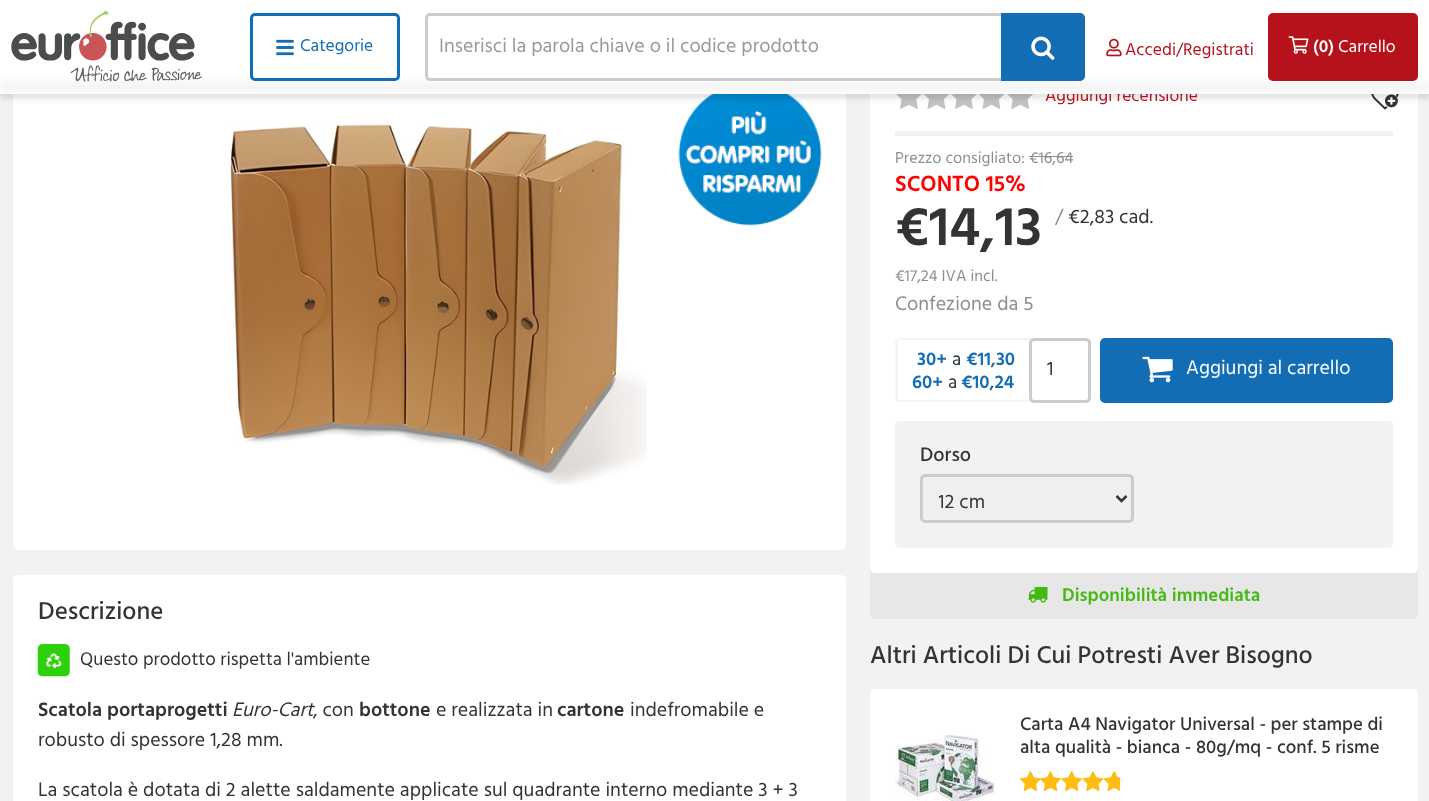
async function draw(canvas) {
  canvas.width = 1429
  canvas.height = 801
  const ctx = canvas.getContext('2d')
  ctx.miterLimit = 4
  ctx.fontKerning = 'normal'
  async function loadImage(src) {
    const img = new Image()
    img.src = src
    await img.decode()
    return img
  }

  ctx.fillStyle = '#f2f2f2'
  ctx.fillRect(0, 0, 1429, 801)
  ctx.fillStyle = '#fff'
  ctx.beginPath()
  ctx.roundRect(13, 58, 833, 492, 5)
  ctx.fill()
  ctx.drawImage(await loadImage('image6.png'), 678, 94, 144, 132)
  ctx.fillStyle = '#e7e7e7'
  ctx.beginPath()
  ctx.roundRect(870, 568, 548, 51, [0, 0, 5, 5])
  ctx.fill()
  ctx.fillStyle = '#fff'
  ctx.beginPath()
  ctx.roundRect(870, 58, 548, 515, 5)
  ctx.fill()
  ctx.drawImage(await loadImage('image8.png'), 896, 94, 26, 15)
  ctx.drawImage(await loadImage('image9.png'), 923, 94, 27, 15)
  ctx.drawImage(await loadImage('image8.png'), 951, 94, 26, 15)
  ctx.drawImage(await loadImage('image9.png'), 978, 94, 27, 15)
  ctx.drawImage(await loadImage('image10.png'), 1007, 94, 26, 15)
  ctx.drawImage(await loadImage('image11.png'), 1371, 94, 28, 16)
  ctx.beginPath()
  ctx.roundRect(1385, 94, 13, 15, 6.5)
  ctx.fill()
  ctx.drawImage(await loadImage('image12.png'), 1385, 94, 13, 14)
  ctx.fillStyle = '#0000001a'
  ctx.filter = 'blur(2.5px)'
  ctx.beginPath()
  ctx.rect(0, 5, 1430, 94)
  ctx.fill()
  ctx.filter = 'none'
  ctx.font = '17.5px Hind'
  ctx.fillStyle = '#b5121b'
  ctx.fillText('Aggiungi recensione', 1045, 101)
  ctx.fillStyle = '#fff'
  ctx.fillRect(0, 0, 1429, 94)
  ctx.drawImage(await loadImage('image0.png'), 11, 10, 192, 72)
  ctx.fillStyle = '#00000024'
  ctx.filter = 'blur(4px)'
  ctx.beginPath()
  ctx.rect(-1, 85, 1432, 3)
  ctx.fill()
  ctx.filter = 'none'
  ctx.fillStyle = '#fff'
  ctx.beginPath()
  ctx.roundRect(251.5, 14.5, 147, 65, 3.5)
  ctx.fill()
  ctx.strokeStyle = '#126db4'
  ctx.lineWidth = 3
  ctx.stroke()
  ctx.drawImage(await loadImage('image1.png'), 276, 39, 18, 17)
  ctx.fillStyle = '#126db4'
  ctx.fillText('Categorie', 300, 51)
  ctx.fillStyle = '#fff'
  ctx.beginPath()
  ctx.roundRect(426.5, 14.5, 657, 65, 3.5)
  ctx.fill()
  ctx.strokeStyle = '#ccc'
  ctx.stroke()
  ctx.font = '20px Hind'
  ctx.fillStyle = '#999'
  ctx.fillText('Inserisci la parola chiave o il codice prodotto', 439, 52)
  ctx.fillStyle = '#126db4'
  ctx.beginPath()
  ctx.roundRect(1002.5, 14.5, 81, 65, [0, 3.5, 3.5, 0])
  ctx.fill()
  ctx.strokeStyle = '#126db4'
  ctx.stroke()
  ctx.drawImage(await loadImage('image2.png'), 1031, 36, 24, 24)
  ctx.drawImage(await loadImage('image3.png'), 1106, 38, 16, 19)
  ctx.font = '17.5px Hind'
  ctx.fillStyle = '#b5121b'
  ctx.fillText('Accedi/Registrati', 1125, 55)
  ctx.beginPath()
  ctx.roundRect(1268, 13, 150, 68, 5)
  ctx.fill()
  ctx.drawImage(await loadImage('image4.png'), 1288, 36, 21, 18)
  ctx.font = '600 17.5px Hind'
  ctx.fillStyle = '#fff'
  ctx.fillText('(0)', 1313, 52)
  ctx.font = '17.5px Hind'
  ctx.fillText('Carrello', 1338, 52)
  ctx.drawImage(await loadImage('image5.png'), 230, 124, 417, 362)
  ctx.beginPath()
  ctx.roundRect(13, 575, 833, 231, 5)
  ctx.fill()
  ctx.font = '500 25px Hind'
  ctx.fillStyle = '#313334'
  ctx.fillText('Descrizione', 38, 619)
  ctx.drawImage(await loadImage('image7.png'), 37, 644, 33, 33)
  ctx.font = '18.75px Hind'
  ctx.fillText('Questo prodotto rispetta l\'ambiente', 80, 665)
  ctx.font = '600 20px Hind'
  ctx.fillText('Scatola portaprogetti', 38, 716)
  ctx.font = 'italic 20px Hind'
  ctx.fillText('Euro-Cart', 232, 716)
  ctx.font = '20px Hind'
  ctx.fillText(', con', 313, 716)
  ctx.font = '600 20px Hind'
  ctx.fillText('bottone', 359, 716)
  ctx.font = '20px Hind'
  ctx.fillText('e realizzata in', 436, 716)
  ctx.font = '600 20px Hind'
  ctx.fillText('cartone', 557, 716)
  ctx.font = '20px Hind'
  ctx.fillText('indefromabile e', 630, 716)
  ctx.fillText('robusto di spessore 1,28 mm.', 38, 746)
  ctx.fillText('La scatola è dotata di 2 alette saldamente applicate sul quadrante interno mediante 3 + 3', 38, 796)
  ctx.fillStyle = '#f2f2f2'
  ctx.fillRect(895, 131, 498, 5)
  ctx.font = '16.25px Hind'
  ctx.fillStyle = '#8e8e8e'
  ctx.fillText('Prezzo consigliato: €16,64', 895, 163)
  ctx.fillRect(1029, 156, 44, 1)
  ctx.font = '600 22.5px Hind'
  ctx.fillStyle = '#f00'
  ctx.fillText('SCONTO 15%', 895, 191)
  ctx.font = '600 56px Hind'
  ctx.fillStyle = '#313334'
  ctx.fillText('€14,13', 895, 245)
  ctx.font = '20px Hind'
  ctx.fillStyle = '#8e8e8e'
  ctx.fillText('/', 1055, 223)
  ctx.fillStyle = '#313334'
  ctx.fillText('€2,83 cad.', 1068, 223)
  ctx.font = '16.25px Hind'
  ctx.fillStyle = '#8e8e8e'
  ctx.fillText('€17,24 IVA incl.', 895, 281)
  ctx.font = '20px Hind'
  ctx.fillText('Confezione da 5', 895, 310)
  ctx.fillStyle = '#f4f4f4'
  ctx.beginPath()
  ctx.moveTo(900, 338)
  ctx.lineTo(1030, 338)
  ctx.lineTo(1030, 402)
  ctx.lineTo(900, 402)
  ctx.bezierCurveTo(897, 402, 895, 400, 895, 398)
  ctx.lineTo(895, 342)
  ctx.bezierCurveTo(895, 340, 897, 338, 900, 338)
  ctx.closePath()
  ctx.moveTo(900, 340)
  ctx.lineTo(1030, 340)
  ctx.lineTo(1030, 400)
  ctx.lineTo(900, 400)
  ctx.bezierCurveTo(899, 400, 898, 399, 898, 398)
  ctx.lineTo(898, 342)
  ctx.bezierCurveTo(898, 341, 899, 340, 900, 340)
  ctx.closePath()
  ctx.fill('evenodd')
  ctx.font = '600 18.75px Hind'
  ctx.fillStyle = '#126db4'
  ctx.fillText('30+', 917, 365)
  ctx.font = '18.75px Hind'
  ctx.fillStyle = '#313334'
  ctx.fillText('a', 952, 365)
  ctx.font = '600 18.75px Hind'
  ctx.fillStyle = '#126db4'
  ctx.fillText('€11,30', 966, 365)
  ctx.fillText('60+', 912, 388)
  ctx.font = '18.75px Hind'
  ctx.fillStyle = '#313334'
  ctx.fillText('a', 948, 388)
  ctx.font = '600 18.75px Hind'
  ctx.fillStyle = '#126db4'
  ctx.fillText('€10,24', 961, 388)
  ctx.fillStyle = '#fff'
  ctx.beginPath()
  ctx.roundRect(1030.5, 339.5, 59, 62, 3.5)
  ctx.fill()
  ctx.strokeStyle = '#ccc'
  ctx.stroke()
  ctx.font = '20px Hind'
  ctx.fillStyle = '#313334'
  ctx.fillText('1', 1047, 375)
  ctx.fillStyle = '#126db4'
  ctx.beginPath()
  ctx.roundRect(1101.5, 339.5, 290, 62, 3.5)
  ctx.fill()
  ctx.strokeStyle = '#126db4'
  ctx.stroke()
  ctx.drawImage(await loadImage('image13.png'), 1142, 356, 31, 27)
  ctx.fillStyle = '#fff'
  ctx.fillText('Aggiungi al carrello', 1186, 374)
  ctx.fillStyle = '#f2f2f2'
  ctx.beginPath()
  ctx.roundRect(895, 421, 498, 127, 5)
  ctx.fill()
  ctx.font = '500 20px Hind'
  ctx.fillStyle = '#313334'
  ctx.fillText('Dorso', 920, 461)
  ctx.fillStyle = '#efefef'
  ctx.beginPath()
  ctx.roundRect(921.5, 475.5, 211, 46, 3.5)
  ctx.fill()
  ctx.strokeStyle = '#ccc'
  ctx.stroke()
  ctx.beginPath()
  ctx.moveTo(1116.5, 496)
  ctx.lineTo(1121.5, 501)
  ctx.lineTo(1126.5, 496)
  ctx.strokeStyle = '#313334'
  ctx.lineWidth = 2.5
  ctx.stroke()
  ctx.save()
  ctx.beginPath()
  ctx.rect(939, 485, 161, 35)
  ctx.clip()
  ctx.font = '20px Hind'
  ctx.fillStyle = '#313334'
  ctx.fillText('12 cm', 938, 508)
  ctx.restore()
  ctx.drawImage(await loadImage('image14.png'), 1028, 586, 20, 17)
  ctx.font = '600 18.75px Hind'
  ctx.fillStyle = '#42ba13'
  ctx.fillText('Disponibilità immediata', 1062, 601)
  ctx.font = '500 25px Hind'
  ctx.fillStyle = '#313334'
  ctx.fillText('Altri Articoli Di Cui Potresti Aver Bisogno', 870, 663)
  ctx.fillStyle = '#fff'
  ctx.beginPath()
  ctx.roundRect(870, 689, 548, 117, 5)
  ctx.fill()
  ctx.drawImage(await loadImage('image15.png'), 895, 730, 100, 71)
  ctx.font = '500 18.75px Hind'
  ctx.fillStyle = '#313334'
  ctx.fillText('Carta A4 Navigator Universal - per stampe di', 1020, 730)
  ctx.fillText('alta qualità - bianca - 80g/mq - conf. 5 risme', 1020, 753)
  ctx.drawImage(await loadImage('image16.png'), 1020, 771, 21, 20)
  ctx.drawImage(await loadImage('image17.png'), 1020, 771, 21, 20)
  ctx.drawImage(await loadImage('image22.png'), 1041, 771, 20, 20)
  ctx.drawImage(await loadImage('image18.png'), 1040, 771, 21, 20)
  ctx.drawImage(await loadImage('image23.png'), 1061, 771, 21, 20)
  ctx.drawImage(await loadImage('image19.png'), 1061, 771, 22, 20)
  ctx.drawImage(await loadImage('image24.png'), 1083, 771, 20, 20)
  ctx.drawImage(await loadImage('image20.png'), 1082, 771, 22, 20)
  ctx.drawImage(await loadImage('image25.png'), 1104, 771, 20, 20)
  ctx.drawImage(await loadImage('image21.png'), 1103, 771, 17, 20)
}

draw(document.querySelector('canvas'))
